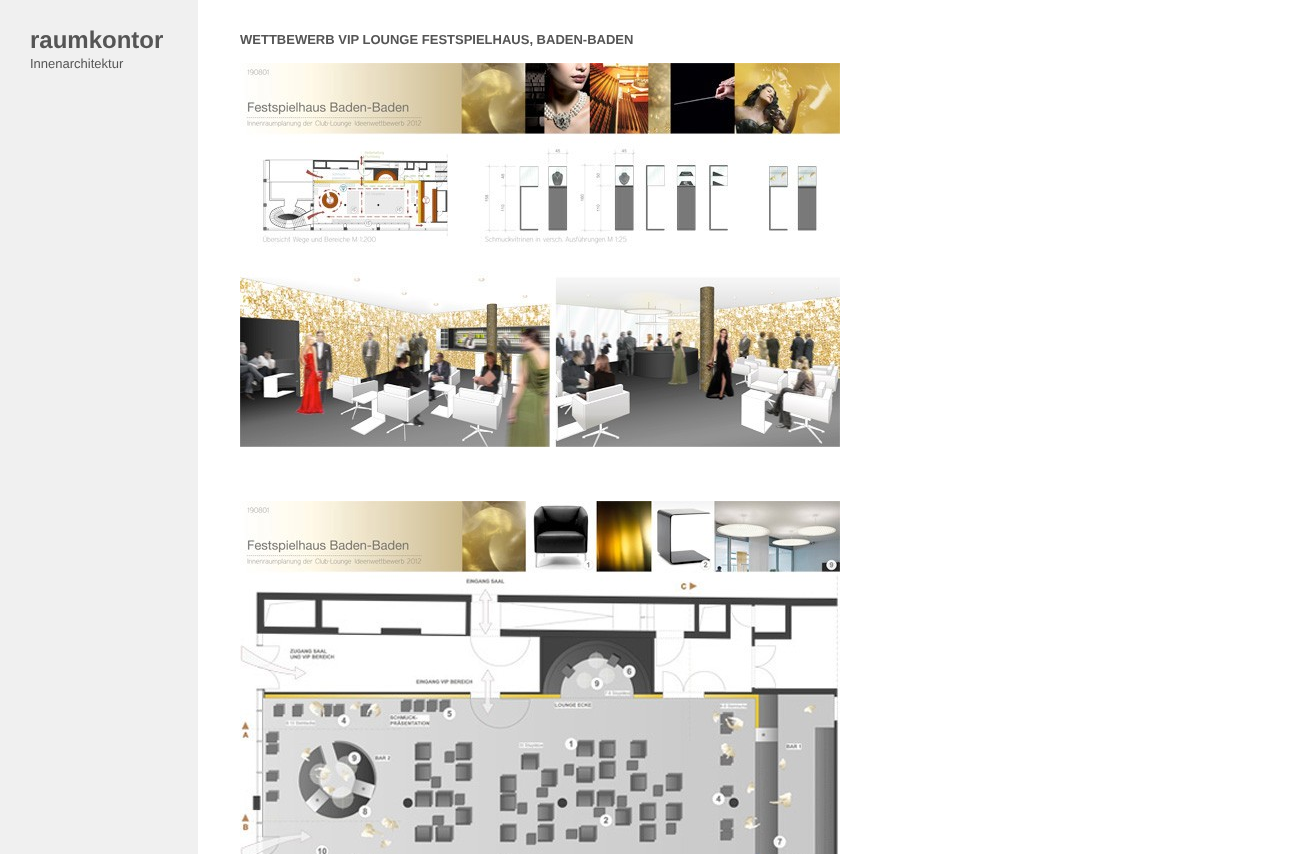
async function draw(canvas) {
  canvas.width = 1302
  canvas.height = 854
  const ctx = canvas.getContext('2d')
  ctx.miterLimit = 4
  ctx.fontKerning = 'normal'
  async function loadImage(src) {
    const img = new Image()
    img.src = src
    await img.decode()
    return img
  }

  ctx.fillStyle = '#fff'
  ctx.fillRect(0, 0, 1302, 854)
  ctx.fillStyle = '#f0f0f0'
  ctx.fillRect(0, 0, 198, 854)
  ctx.font = 'bold 24px Liberation Sans'
  ctx.fillStyle = '#555'
  ctx.fillText('raumkontor', 30, 48)
  ctx.font = '13px Liberation Sans'
  ctx.fillText('Innenarchitektur', 30, 68)
  ctx.font = 'bold 13px Liberation Sans'
  ctx.fillText('WETTBEWERB VIP LOUNGE FESTSPIELHAUS, BADEN-BADEN', 240, 44)
  ctx.drawImage(await loadImage('image0.png'), 240, 63, 600, 385)
  ctx.drawImage(await loadImage('image1.png'), 240, 501, 600, 353)
}

draw(document.querySelector('canvas'))
